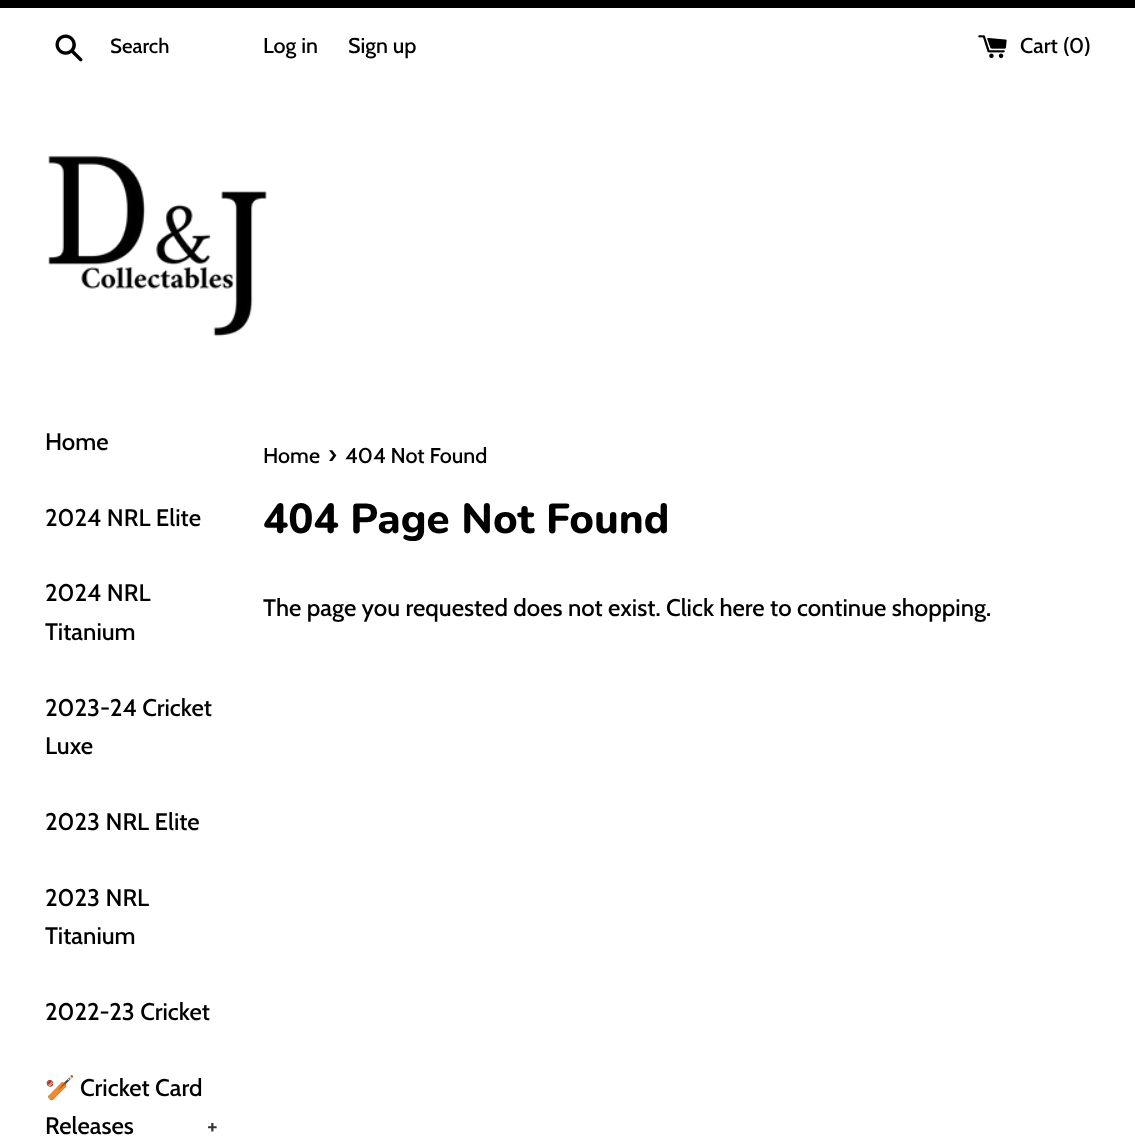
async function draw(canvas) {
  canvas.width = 1135
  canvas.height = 1139
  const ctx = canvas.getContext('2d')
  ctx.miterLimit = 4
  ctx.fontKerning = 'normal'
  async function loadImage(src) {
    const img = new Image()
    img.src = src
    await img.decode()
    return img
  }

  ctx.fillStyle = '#fff'
  ctx.fillRect(0, 0, 1135, 1139)
  ctx.fillStyle = '#000'
  ctx.fillRect(0, 0, 1135, 8)
  ctx.drawImage(await loadImage('image0.png'), 55, 34, 28, 28)
  ctx.font = '500 20.5px Cabin'
  ctx.fillText('Search', 110, 53)
  ctx.font = '500 21.5px Cabin'
  ctx.fillText('Log in', 263, 53)
  ctx.fillText('Sign up', 348, 53)
  ctx.drawImage(await loadImage('image1.png'), 978, 35, 29, 24)
  ctx.fillText('Cart (', 1020, 53)
  ctx.fillText('0', 1069, 53)
  ctx.fillText(')', 1084, 53)
  ctx.drawImage(await loadImage('image2.png'), 48, 155, 219, 182)
  ctx.font = '500 24px Cabin'
  ctx.fillText('Home', 45, 450)
  ctx.fillText('2024 NRL Elite', 45, 526)
  ctx.fillText('2024 NRL', 45, 601)
  ctx.fillText('Titanium', 45, 640)
  ctx.fillText('2023-24 Cricket', 45, 716)
  ctx.fillText('Luxe', 45, 754)
  ctx.fillText('2023 NRL Elite', 45, 830)
  ctx.fillText('2023 NRL', 45, 906)
  ctx.fillText('Titanium', 45, 944)
  ctx.fillText('2022-23 Cricket', 45, 1020)
  ctx.font = '24px Noto Color Emoji'
  ctx.fillText('🏏', 45, 1096)
  ctx.font = '500 24px Cabin'
  ctx.fillText('Cricket Card', 80, 1096)
  ctx.fillText('Releases', 45, 1134)
  ctx.fillStyle = '#333'
  ctx.fillText('+', 207, 1134)
  ctx.font = '500 21.5px Cabin'
  ctx.fillStyle = '#000'
  ctx.fillText('Home', 263, 463)
  ctx.font = '500 26px Cabin'
  ctx.fillText('›', 328, 463)
  ctx.font = '500 21.5px Cabin'
  ctx.fillText('404 Not Found', 345, 463)
  ctx.font = '800 42px Nunito'
  ctx.fillText('404 Page Not Found', 263, 533)
  ctx.font = '500 24px Cabin'
  ctx.fillText('The page you requested does not exist. Click here to continue shopping.', 263, 616)
}

draw(document.querySelector('canvas'))
